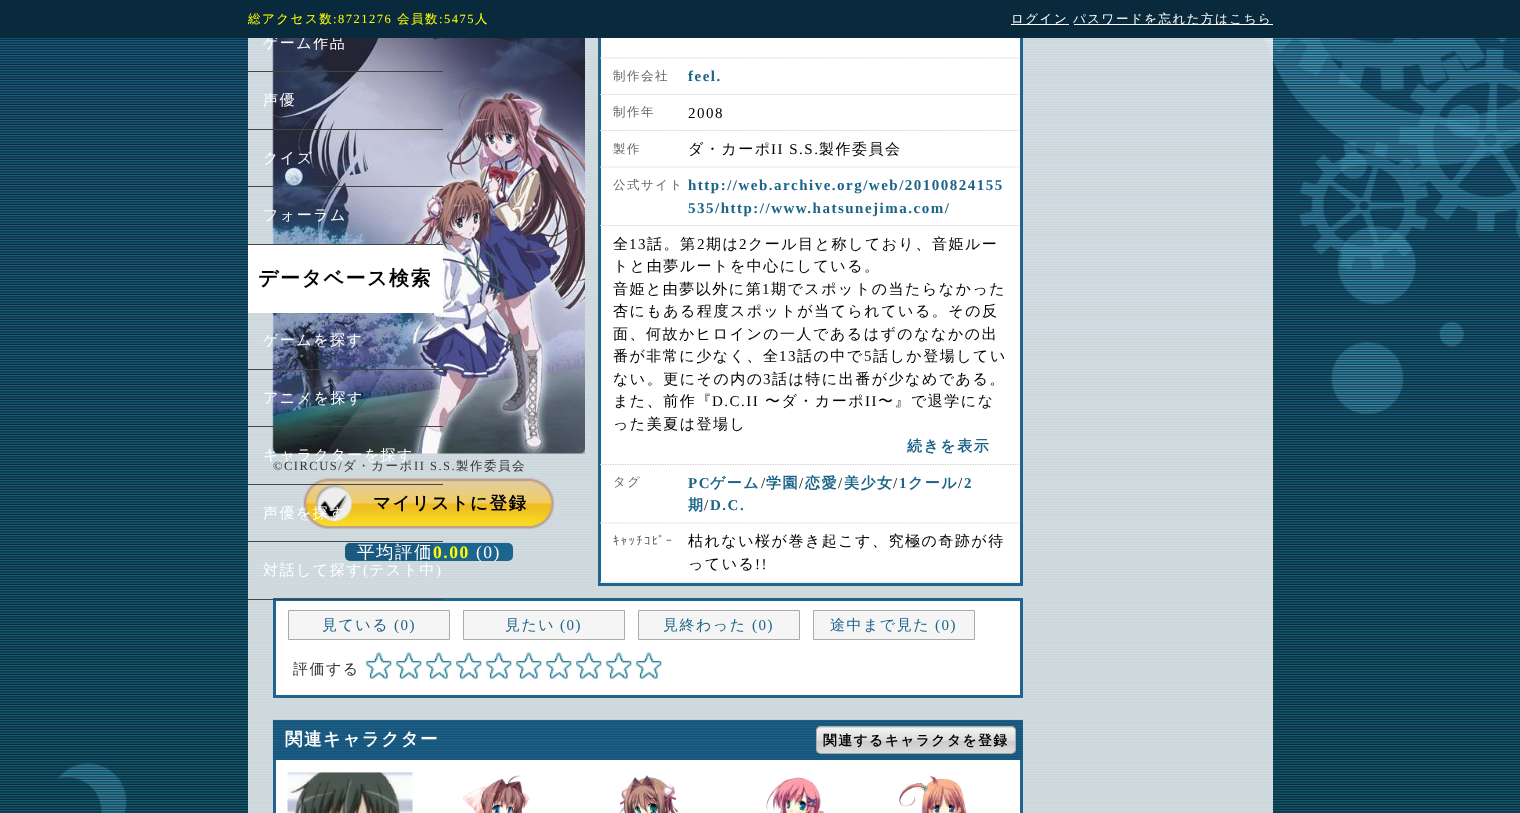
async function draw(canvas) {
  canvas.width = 1520
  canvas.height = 813
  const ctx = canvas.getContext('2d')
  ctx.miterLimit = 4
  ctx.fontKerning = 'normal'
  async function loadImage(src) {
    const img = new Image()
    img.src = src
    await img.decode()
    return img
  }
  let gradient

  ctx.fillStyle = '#fff'
  ctx.fillRect(0, 0, 1520, 813)
  gradient = ctx.createLinearGradient(760, -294, 760, 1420)
  gradient.addColorStop(0, '#1e6490')
  gradient.addColorStop(1, '#0d5e6d')
  ctx.fillStyle = gradient
  ctx.fillRect(0, 38, 1520, 775)
  ctx.drawImage(await loadImage('image0.png'), 1262, 38, 258, 377)
  ctx.drawImage(await loadImage('image1.png'), 57, 763, 70, 50)
  ctx.drawImage(await loadImage('image2.png'), 0, 38, 1520, 775)
  ctx.fillStyle = '#ffffffcc'
  ctx.fillRect(248, 38, 1025, 775)
  ctx.drawImage(await loadImage('image3.png'), 272, 38, 313, 416)
  ctx.letterSpacing = '1.5px'
  ctx.font = '500 15px WenQuanYi Zen Hei'
  ctx.fillStyle = '#fff'
  ctx.fillText('ゲーム作品', 263, 48)
  ctx.fillStyle = '#092a3d'
  ctx.fillRect(0, 0, 1520, 38)
  ctx.font = '500 12.5px WenQuanYi Zen Hei'
  ctx.fillStyle = '#ff0'
  ctx.fillText('総アクセス数', 248, 23)
  ctx.font = '12.5px Liberation Serif'
  ctx.fillText(':8721276', 333, 23)
  ctx.font = '500 12.5px WenQuanYi Zen Hei'
  ctx.fillText('会員数', 397, 23)
  ctx.font = '12.5px Liberation Serif'
  ctx.fillText(':5475', 439, 23)
  ctx.font = '500 12.5px WenQuanYi Zen Hei'
  ctx.fillText('人', 475, 23)
  ctx.fillStyle = '#fff'
  ctx.fillRect(1011, 24, 58, 1)
  ctx.fillText('ログイン', 1011, 23)
  ctx.fillRect(1074, 24, 199, 1)
  ctx.fillText('パスワードを忘れた方はこちら', 1073, 23)
  ctx.fillStyle = '#444'
  ctx.fillRect(248, 71, 195, 1)
  ctx.fillRect(248, 129, 195, 1)
  ctx.font = '500 15px WenQuanYi Zen Hei'
  ctx.fillStyle = '#fff'
  ctx.fillText('声優', 263, 105)
  ctx.fillStyle = '#444'
  ctx.fillRect(248, 186, 195, 1)
  ctx.fillStyle = '#fff'
  ctx.fillText('クイズ', 263, 163)
  ctx.fillStyle = '#444'
  ctx.fillRect(248, 244, 195, 1)
  ctx.fillStyle = '#fff'
  ctx.fillText('フォーラム', 263, 220)
  ctx.fillRect(248, 245, 195, 68)
  ctx.font = 'bold 20px WenQuanYi Zen Hei'
  ctx.fillStyle = '#000'
  ctx.fillText('データベース検索', 258, 285)
  ctx.fillStyle = '#444'
  ctx.fillRect(248, 369, 195, 1)
  ctx.font = '500 15px WenQuanYi Zen Hei'
  ctx.fillStyle = '#fff'
  ctx.fillText('ゲームを探す', 263, 345)
  ctx.fillStyle = '#444'
  ctx.fillRect(248, 426, 195, 1)
  ctx.fillStyle = '#fff'
  ctx.fillText('アニメを探す', 263, 403)
  ctx.drawImage(await loadImage('image4.png'), 303, 478, 251, 51)
  ctx.fillStyle = '#444'
  ctx.fillRect(248, 484, 195, 1)
  ctx.fillStyle = '#fff'
  ctx.fillText('キャラクターを探す', 263, 460)
  ctx.fillStyle = '#444'
  ctx.fillRect(248, 541, 195, 1)
  ctx.fillStyle = '#fff'
  ctx.fillText('声優を探す', 263, 518)
  ctx.beginPath()
  ctx.rect(274.5, 599.5, 747, 97)
  ctx.fill()
  ctx.strokeStyle = '#1d648e'
  ctx.lineWidth = 3
  ctx.stroke()
  ctx.fillStyle = '#444'
  ctx.fillRect(248, 599, 195, 1)
  ctx.fillStyle = '#fff'
  ctx.fillText('対話して探す', 263, 575)
  ctx.font = '15px Liberation Serif'
  ctx.fillText('(', 363, 575)
  ctx.font = '500 15px WenQuanYi Zen Hei'
  ctx.fillText('テスト中', 369, 575)
  ctx.font = '15px Liberation Serif'
  ctx.fillText(')', 436, 575)
  ctx.font = '12.5px Liberation Serif'
  ctx.fillStyle = '#333'
  ctx.fillText('©CIRCUS/', 273, 470)
  ctx.font = '500 12.5px WenQuanYi Zen Hei'
  ctx.fillText('ダ・カーポ', 343, 470)
  ctx.font = '12.5px Liberation Serif'
  ctx.fillText('II S.S.', 414, 470)
  ctx.font = '500 12.5px WenQuanYi Zen Hei'
  ctx.fillText('製作委員会', 456, 470)
  ctx.font = 'bold 17.5px WenQuanYi Zen Hei'
  ctx.fillStyle = '#000'
  ctx.fillText('マイリストに登録', 373, 509)
  ctx.fillStyle = '#1d648e'
  ctx.beginPath()
  ctx.roundRect(345, 543, 88, 18, [5, 0, 0, 5])
  ctx.fill()
  ctx.drawImage(await loadImage('image5.png'), 345, 542, 168, 18)
  ctx.font = '500 17.5px WenQuanYi Zen Hei'
  ctx.fillStyle = '#fff'
  ctx.fillText('平均評価', 357, 558)
  ctx.fillStyle = '#1d648e'
  ctx.fillRect(433, 543, 37, 18)
  ctx.font = 'bold 17.5px Liberation Serif'
  ctx.fillStyle = '#ff0'
  ctx.fillText('0.00', 433, 558)
  ctx.fillStyle = '#1d648e'
  ctx.beginPath()
  ctx.roundRect(470, 543, 43, 18, [0, 5, 5, 0])
  ctx.fill()
  ctx.font = '17.5px Liberation Serif'
  ctx.fillStyle = '#fff'
  ctx.fillText('(0)', 476, 558)
  ctx.fillRect(601, 38, 419, 57)
  ctx.fillStyle = '#1d648e'
  ctx.fillRect(1020, 38, 3, 547)
  ctx.fillRect(598, 38, 3, 57)
  ctx.beginPath()
  ctx.moveTo(600, 58)
  ctx.lineTo(1020, 58)
  ctx.strokeStyle = '#ccc'
  ctx.lineWidth = 1.2
  ctx.setLineDash([1.25, 1.25])
  ctx.stroke()
  ctx.font = '500 12.5px WenQuanYi Zen Hei'
  ctx.fillStyle = '#666'
  ctx.fillText('制作会社', 613, 80)
  ctx.beginPath()
  ctx.moveTo(600, 94.5)
  ctx.lineTo(1020, 94.5)
  ctx.stroke()
  ctx.font = 'bold 15px Liberation Serif'
  ctx.fillStyle = '#1b6389'
  ctx.fillText('feel.', 688, 81)
  ctx.fillStyle = '#fff'
  ctx.fillRect(601, 95, 419, 36)
  ctx.fillStyle = '#1d648e'
  ctx.fillRect(598, 95, 3, 36)
  ctx.font = '500 12.5px WenQuanYi Zen Hei'
  ctx.fillStyle = '#666'
  ctx.fillText('制作年', 613, 116)
  ctx.beginPath()
  ctx.moveTo(600, 130.5)
  ctx.lineTo(1020, 130.5)
  ctx.stroke()
  ctx.font = '15px Liberation Serif'
  ctx.fillStyle = '#000'
  ctx.fillText('2008', 688, 118)
  ctx.fillStyle = '#fff'
  ctx.fillRect(601, 131, 419, 95)
  ctx.fillStyle = '#1d648e'
  ctx.fillRect(598, 131, 3, 95)
  ctx.font = '500 12.5px WenQuanYi Zen Hei'
  ctx.fillStyle = '#666'
  ctx.fillText('製作', 613, 153)
  ctx.beginPath()
  ctx.moveTo(600, 167)
  ctx.lineTo(1020, 167)
  ctx.stroke()
  ctx.font = '500 15px WenQuanYi Zen Hei'
  ctx.fillStyle = '#000'
  ctx.fillText('ダ・カーポ', 688, 154)
  ctx.font = '15px Liberation Serif'
  ctx.fillText('II S.S.', 771, 154)
  ctx.font = '500 15px WenQuanYi Zen Hei'
  ctx.fillText('製作委員会', 819, 154)
  ctx.font = '500 12.5px WenQuanYi Zen Hei'
  ctx.fillStyle = '#666'
  ctx.fillText('公式サイト', 613, 189)
  ctx.beginPath()
  ctx.moveTo(600, 225.5)
  ctx.lineTo(1020, 225.5)
  ctx.stroke()
  ctx.font = 'bold 15px Liberation Serif'
  ctx.fillStyle = '#1b6389'
  ctx.fillText('http://web.archive.org/web/20100824155', 688, 190)
  ctx.fillText('535/http://www.hatsunejima.com/', 688, 213)
  ctx.fillStyle = '#fff'
  ctx.fillRect(601, 226, 419, 239)
  ctx.fillStyle = '#1d648e'
  ctx.fillRect(598, 226, 3, 239)
  ctx.beginPath()
  ctx.moveTo(600, 464.5)
  ctx.lineTo(1020, 464.5)
  ctx.stroke()
  ctx.font = '500 15px WenQuanYi Zen Hei'
  ctx.fillStyle = '#000'
  ctx.fillText('全', 613, 249)
  ctx.font = '15px Liberation Serif'
  ctx.fillText('13', 629, 249)
  ctx.font = '500 15px WenQuanYi Zen Hei'
  ctx.fillText('話。第', 647, 249)
  ctx.font = '15px Liberation Serif'
  ctx.fillText('2', 697, 249)
  ctx.font = '500 15px WenQuanYi Zen Hei'
  ctx.fillText('期は', 706, 249)
  ctx.font = '15px Liberation Serif'
  ctx.fillText('2', 739, 249)
  ctx.font = '500 15px WenQuanYi Zen Hei'
  ctx.fillText('クール目と称しており、音姫ルー', 748, 249)
  ctx.fillText('トと由夢ルートを中心にしている。', 613, 271)
  ctx.fillText('音姫と由夢以外に第', 613, 294)
  ctx.font = '15px Liberation Serif'
  ctx.fillText('1', 762, 294)
  ctx.font = '500 15px WenQuanYi Zen Hei'
  ctx.fillText('期でスポットの当たらなかった', 771, 294)
  ctx.fillText('杏にもある程度スポットが当てられている。その反', 613, 316)
  ctx.fillText('面、何故かヒロインの一人であるはずのななかの出', 613, 339)
  ctx.fillText('番が非常に少なく、全', 613, 361)
  ctx.font = '15px Liberation Serif'
  ctx.fillText('13', 779, 361)
  ctx.font = '500 15px WenQuanYi Zen Hei'
  ctx.fillText('話の中で', 797, 361)
  ctx.font = '15px Liberation Serif'
  ctx.fillText('5', 864, 361)
  ctx.font = '500 15px WenQuanYi Zen Hei'
  ctx.fillText('話しか登場してい', 873, 361)
  ctx.fillText('ない。更にその内の', 613, 384)
  ctx.font = '15px Liberation Serif'
  ctx.fillText('3', 763, 384)
  ctx.font = '500 15px WenQuanYi Zen Hei'
  ctx.fillText('話は特に出番が少なめである。', 772, 384)
  ctx.fillText('また、前作『', 613, 406)
  ctx.font = '15px Liberation Serif'
  ctx.fillText('D.C.II', 712, 406)
  ctx.font = '500 15px WenQuanYi Zen Hei'
  ctx.fillText('〜ダ・カーポ', 765, 406)
  ctx.font = '15px Liberation Serif'
  ctx.fillText('II', 865, 406)
  ctx.font = '500 15px WenQuanYi Zen Hei'
  ctx.fillText('〜』で退学にな', 878, 406)
  ctx.fillText('った美夏は登場し', 613, 429)
  ctx.font = 'bold 15px WenQuanYi Zen Hei'
  ctx.fillStyle = '#1b6389'
  ctx.fillText('続きを表示', 907, 451)
  ctx.fillStyle = '#fff'
  ctx.fillRect(601, 465, 419, 118)
  ctx.fillStyle = '#1d648e'
  ctx.fillRect(598, 465, 3, 59)
  ctx.font = '500 12.5px WenQuanYi Zen Hei'
  ctx.fillStyle = '#666'
  ctx.fillText('タグ', 613, 486)
  ctx.beginPath()
  ctx.moveTo(600, 523)
  ctx.lineTo(1020, 523)
  ctx.stroke()
  ctx.font = 'bold 15px Liberation Serif'
  ctx.fillStyle = '#1b6389'
  ctx.fillText('PC', 688, 488)
  ctx.font = 'bold 15px WenQuanYi Zen Hei'
  ctx.fillText('ゲーム', 710, 488)
  ctx.font = '15px Liberation Serif'
  ctx.fillStyle = '#000'
  ctx.fillText('/', 761, 488)
  ctx.font = 'bold 15px WenQuanYi Zen Hei'
  ctx.fillStyle = '#1b6389'
  ctx.fillText('学園', 766, 488)
  ctx.font = '15px Liberation Serif'
  ctx.fillStyle = '#000'
  ctx.fillText('/', 799, 488)
  ctx.font = 'bold 15px WenQuanYi Zen Hei'
  ctx.fillStyle = '#1b6389'
  ctx.fillText('恋愛', 805, 488)
  ctx.font = '15px Liberation Serif'
  ctx.fillStyle = '#000'
  ctx.fillText('/', 838, 488)
  ctx.font = 'bold 15px WenQuanYi Zen Hei'
  ctx.fillStyle = '#1b6389'
  ctx.fillText('美少女', 844, 488)
  ctx.font = '15px Liberation Serif'
  ctx.fillStyle = '#000'
  ctx.fillText('/', 893, 488)
  ctx.font = 'bold 15px Liberation Serif'
  ctx.fillStyle = '#1b6389'
  ctx.fillText('1', 899, 488)
  ctx.font = 'bold 15px WenQuanYi Zen Hei'
  ctx.fillText('クール', 908, 488)
  ctx.font = '15px Liberation Serif'
  ctx.fillStyle = '#000'
  ctx.fillText('/', 958, 488)
  ctx.font = 'bold 15px Liberation Serif'
  ctx.fillStyle = '#1b6389'
  ctx.fillText('2', 964, 488)
  ctx.font = 'bold 15px WenQuanYi Zen Hei'
  ctx.fillText('期', 688, 510)
  ctx.font = '15px Liberation Serif'
  ctx.fillStyle = '#000'
  ctx.fillText('/', 704, 510)
  ctx.font = 'bold 15px Liberation Serif'
  ctx.fillStyle = '#1b6389'
  ctx.fillText('D.C.', 710, 510)
  ctx.fillStyle = '#1d648e'
  ctx.fillRect(598, 583, 425, 3)
  ctx.fillRect(598, 524, 3, 61)
  ctx.font = '12.5px IPAPGothic'
  ctx.fillStyle = '#666'
  ctx.fillText('ｷｬｯﾁｺﾋﾟｰ', 613, 545)
  ctx.beginPath()
  ctx.moveTo(600, 582)
  ctx.lineTo(1020, 582)
  ctx.stroke()
  ctx.font = '500 15px WenQuanYi Zen Hei'
  ctx.fillStyle = '#000'
  ctx.fillText('枯れない桜が巻き起こす、究極の奇跡が待', 688, 546)
  ctx.fillText('っている', 688, 569)
  ctx.font = '15px Liberation Serif'
  ctx.fillText('!!', 755, 569)
  ctx.fillStyle = '#f5f5f5'
  ctx.beginPath()
  ctx.rect(288.5, 610.5, 161, 29)
  ctx.fill()
  ctx.strokeStyle = '#aaa'
  ctx.lineWidth = 1
  ctx.setLineDash([])
  ctx.stroke()
  ctx.font = '500 15px WenQuanYi Zen Hei'
  ctx.fillStyle = '#1b6389'
  ctx.fillText('見ている', 322, 630)
  ctx.font = '15px Liberation Serif'
  ctx.fillText('(0)', 394, 630)
  ctx.fillStyle = '#f5f5f5'
  ctx.beginPath()
  ctx.rect(463.5, 610.5, 161, 29)
  ctx.fill()
  ctx.stroke()
  ctx.font = '500 15px WenQuanYi Zen Hei'
  ctx.fillStyle = '#1b6389'
  ctx.fillText('見たい', 505, 630)
  ctx.font = '15px Liberation Serif'
  ctx.fillText('(0)', 560, 630)
  ctx.fillStyle = '#f5f5f5'
  ctx.beginPath()
  ctx.rect(638.5, 610.5, 161, 29)
  ctx.fill()
  ctx.stroke()
  ctx.font = '500 15px WenQuanYi Zen Hei'
  ctx.fillStyle = '#1b6389'
  ctx.fillText('見終わった', 663, 630)
  ctx.font = '15px Liberation Serif'
  ctx.fillText('(0)', 752, 630)
  ctx.fillStyle = '#f5f5f5'
  ctx.beginPath()
  ctx.rect(813.5, 610.5, 161, 29)
  ctx.fill()
  ctx.stroke()
  ctx.font = '500 15px WenQuanYi Zen Hei'
  ctx.fillStyle = '#1b6389'
  ctx.fillText('途中まで見た', 830, 630)
  ctx.font = '15px Liberation Serif'
  ctx.fillText('(0)', 935, 630)
  ctx.font = '500 15px WenQuanYi Zen Hei'
  ctx.fillStyle = '#333'
  ctx.fillText('評価する', 293, 674)
  ctx.drawImage(await loadImage('image6.png'), 366, 652, 26, 27)
  ctx.drawImage(await loadImage('image6.png'), 396, 652, 26, 27)
  ctx.drawImage(await loadImage('image7.png'), 426, 652, 26, 27)
  ctx.drawImage(await loadImage('image7.png'), 456, 652, 26, 27)
  ctx.drawImage(await loadImage('image7.png'), 486, 652, 26, 27)
  ctx.drawImage(await loadImage('image7.png'), 516, 652, 26, 27)
  ctx.drawImage(await loadImage('image7.png'), 546, 652, 26, 27)
  ctx.drawImage(await loadImage('image6.png'), 576, 652, 26, 27)
  ctx.drawImage(await loadImage('image7.png'), 606, 652, 26, 27)
  ctx.drawImage(await loadImage('image7.png'), 636, 652, 26, 27)
  ctx.fillStyle = '#1d648e'
  ctx.fillRect(273, 720, 750, 40)
  ctx.drawImage(await loadImage('image8.png'), 272, 719, 751, 41)
  ctx.font = 'bold 17.5px WenQuanYi Zen Hei'
  ctx.fillStyle = '#fff'
  ctx.fillText('関連キャラクター', 285, 745)
  ctx.save()
  ctx.beginPath()
  ctx.roundRect(816, 726, 200, 28, 5)
  ctx.clip()
  gradient = ctx.createLinearGradient(916, 703, 916, 728)
  gradient.addColorStop(0, '#f3f3f3')
  gradient.addColorStop(0.5, '#dbdbdb')
  gradient.addColorStop(0.51, '#cacaca')
  gradient.addColorStop(1, '#dcdcdc')
  ctx.fillStyle = gradient
  ctx.fillRect(816, 726, 200, 2)
  gradient = ctx.createLinearGradient(916, 728, 916, 753)
  gradient.addColorStop(0, '#f3f3f3')
  gradient.addColorStop(0.5, '#dbdbdb')
  gradient.addColorStop(0.51, '#cacaca')
  gradient.addColorStop(1, '#dcdcdc')
  ctx.fillStyle = gradient
  ctx.fillRect(816, 728, 200, 25)
  ctx.restore()
  ctx.beginPath()
  ctx.roundRect(816.5, 726.5, 199, 27, 4.5)
  ctx.stroke()
  ctx.font = 'bold 13.75px WenQuanYi Zen Hei'
  ctx.fillStyle = '#000'
  ctx.fillText('関連するキャラクタを登録', 823, 745)
  ctx.fillStyle = '#fff'
  ctx.fillRect(276, 760, 744, 53)
  ctx.fillStyle = '#1d648e'
  ctx.fillRect(1020, 760, 3, 53)
  ctx.fillRect(273, 760, 3, 53)
  ctx.drawImage(await loadImage('image9.png'), 287, 772, 126, 41)
  ctx.drawImage(await loadImage('image10.png'), 463, 775, 67, 38)
  ctx.drawImage(await loadImage('image11.png'), 619, 775, 60, 38)
  ctx.drawImage(await loadImage('image12.png'), 766, 777, 59, 36)
  ctx.drawImage(await loadImage('image13.png'), 899, 775, 68, 38)
}

draw(document.querySelector('canvas'))
